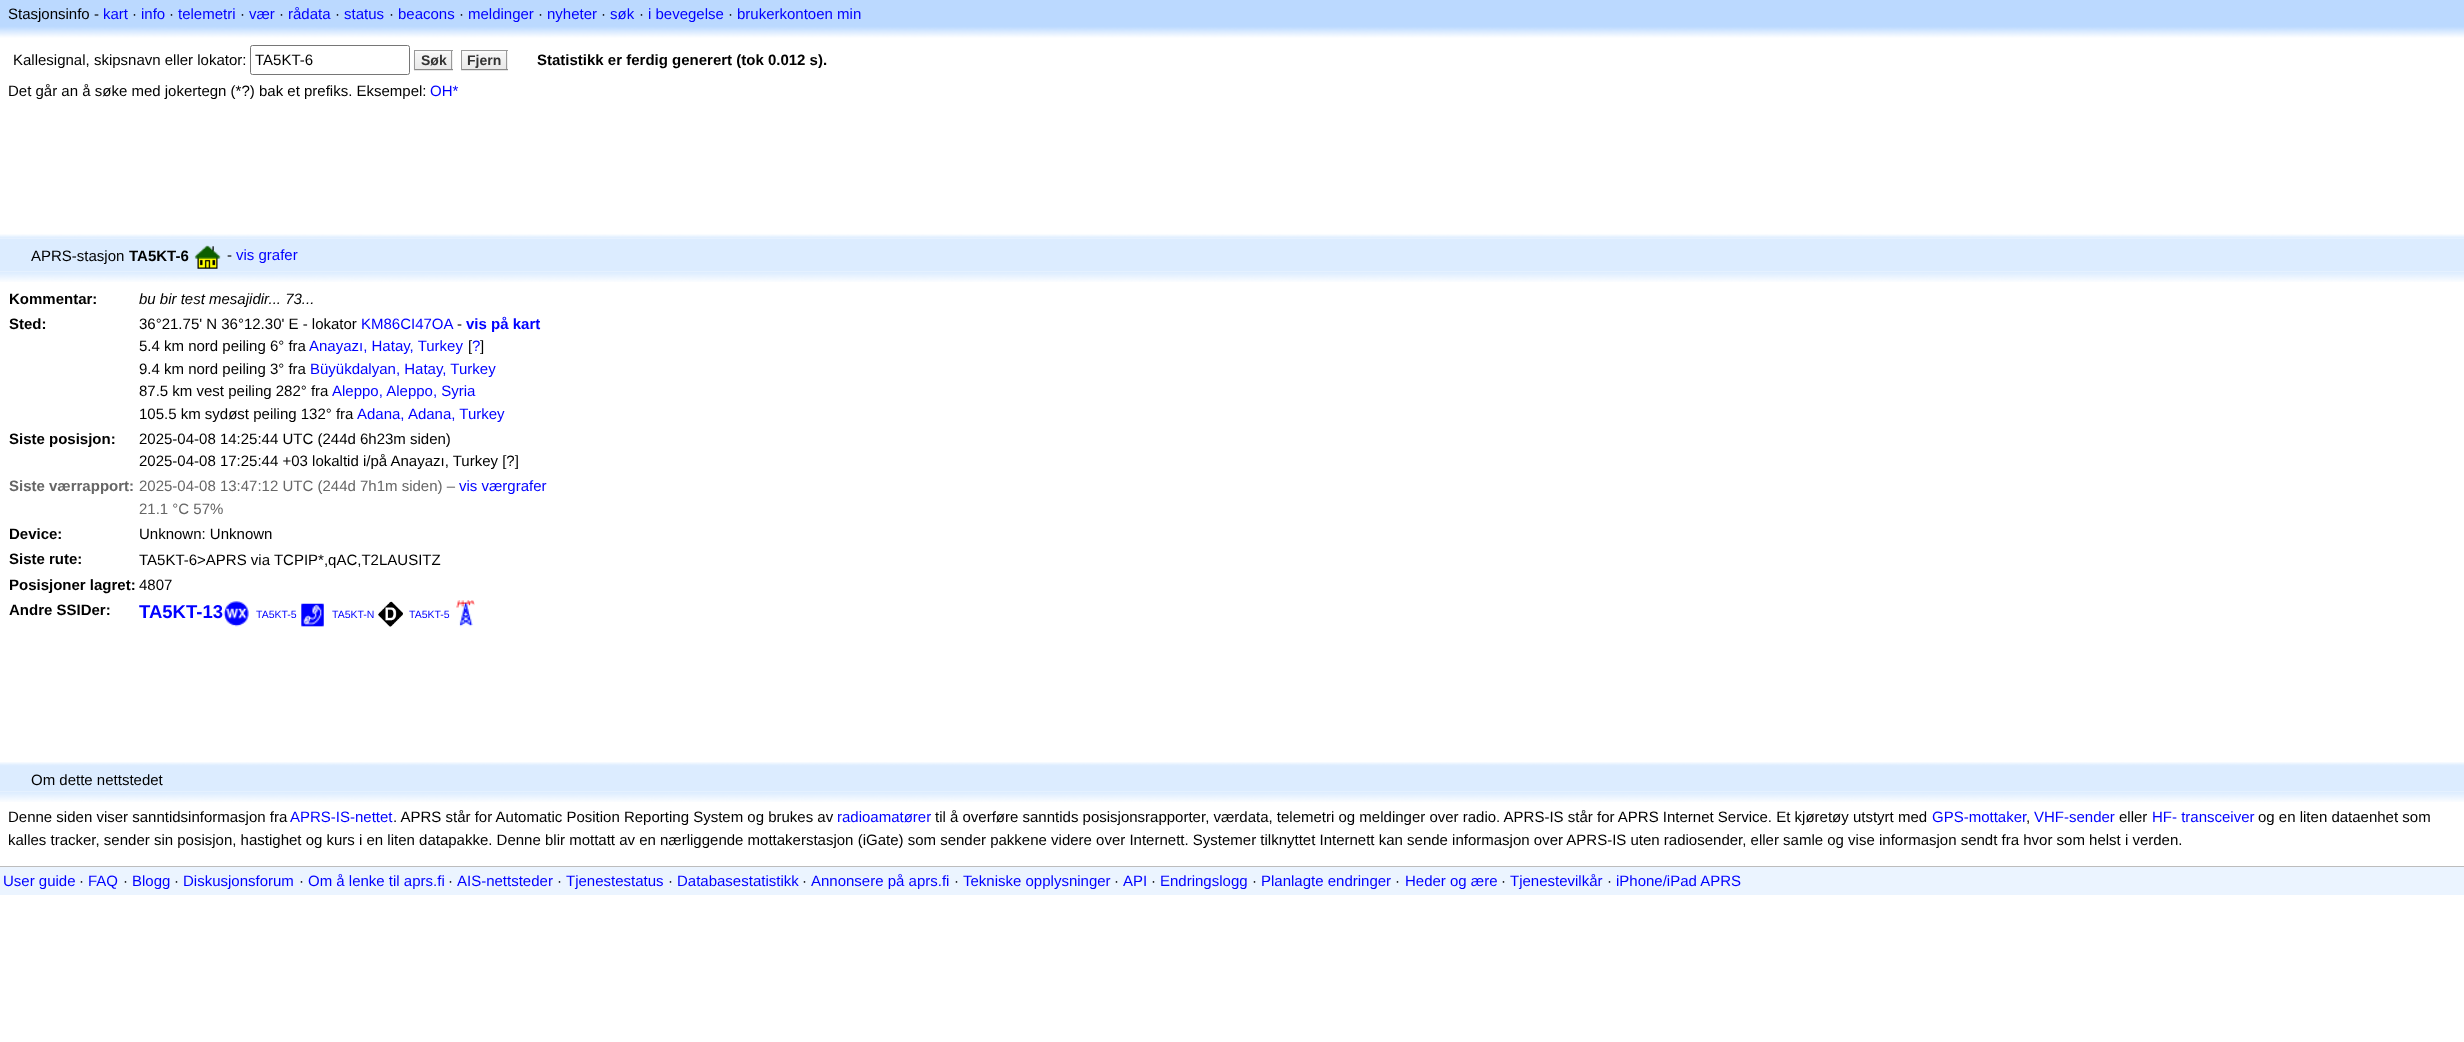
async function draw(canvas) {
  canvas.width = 2464
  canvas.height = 1042
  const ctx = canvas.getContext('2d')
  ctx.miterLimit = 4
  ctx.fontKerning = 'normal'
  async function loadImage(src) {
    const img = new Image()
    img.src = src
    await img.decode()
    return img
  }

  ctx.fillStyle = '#fff'
  ctx.fillRect(0, 0, 2464, 1042)
  ctx.fillStyle = '#bbd9ff'
  ctx.fillRect(0, 0, 2464, 25)
  ctx.font = '15px Liberation Sans'
  ctx.fillStyle = '#000'
  ctx.fillText('Stasjonsinfo -', 8, 19)
  ctx.fillStyle = '#00f'
  ctx.fillText('kart', 103, 19)
  ctx.fillStyle = '#000'
  ctx.fillText('·', 132, 19)
  ctx.fillStyle = '#00f'
  ctx.fillText('info', 141, 19)
  ctx.fillStyle = '#000'
  ctx.fillText('·', 169, 19)
  ctx.fillStyle = '#00f'
  ctx.fillText('telemetri', 178, 19)
  ctx.fillStyle = '#000'
  ctx.fillText('·', 240, 19)
  ctx.fillStyle = '#00f'
  ctx.fillText('vær', 249, 19)
  ctx.fillStyle = '#000'
  ctx.fillText('·', 279, 19)
  ctx.fillStyle = '#00f'
  ctx.fillText('rådata', 288, 19)
  ctx.fillStyle = '#000'
  ctx.fillText('·', 335, 19)
  ctx.fillStyle = '#00f'
  ctx.fillText('status', 344, 19)
  ctx.fillStyle = '#000'
  ctx.fillText('·', 389, 19)
  ctx.fillStyle = '#00f'
  ctx.fillText('beacons', 398, 19)
  ctx.fillStyle = '#000'
  ctx.fillText('·', 459, 19)
  ctx.fillStyle = '#00f'
  ctx.fillText('meldinger', 468, 19)
  ctx.fillStyle = '#000'
  ctx.fillText('·', 538, 19)
  ctx.fillStyle = '#00f'
  ctx.fillText('nyheter', 547, 19)
  ctx.fillStyle = '#000'
  ctx.fillText('·', 601, 19)
  ctx.fillStyle = '#00f'
  ctx.fillText('søk', 610, 19)
  ctx.fillStyle = '#000'
  ctx.fillText('·', 639, 19)
  ctx.fillStyle = '#00f'
  ctx.fillText('i bevegelse', 648, 19)
  ctx.fillStyle = '#000'
  ctx.fillText('·', 728, 19)
  ctx.fillStyle = '#00f'
  ctx.fillText('brukerkontoen min', 737, 19)
  ctx.drawImage(await loadImage('image0.png'), 0, 25, 2464, 13)
  ctx.fillStyle = '#000'
  ctx.fillText('Kallesignal, skipsnavn eller lokator:', 13, 65)
  ctx.beginPath()
  ctx.roundRect(250.5, 45.5, 159, 29, 2)
  ctx.strokeStyle = '#767676'
  ctx.stroke()
  ctx.fillText('TA5KT-6', 255, 65)
  ctx.fillStyle = '#e6e6e6'
  ctx.beginPath()
  ctx.moveTo(414, 70)
  ctx.lineTo(414, 71)
  ctx.lineTo(453, 71)
  ctx.lineTo(453, 51)
  ctx.lineTo(452.5, 51)
  ctx.lineTo(452.5, 70)
  ctx.closePath()
  ctx.fill()
  ctx.fillStyle = '#eee'
  ctx.fillRect(415, 51, 38, 18)
  ctx.drawImage(await loadImage('image1.png'), 413, 51, 40, 19)
  ctx.fillStyle = '#999'
  ctx.fillRect(414, 50, 39, 1)
  ctx.fillRect(451, 50, 1, 20)
  ctx.fillStyle = '#888'
  ctx.fillRect(414, 69, 39, 1)
  ctx.fillStyle = '#999'
  ctx.fillRect(414, 50, 1, 20)
  ctx.font = 'bold 14px Liberation Sans'
  ctx.fillStyle = '#333'
  ctx.fillText('Søk', 421, 65)
  ctx.fillStyle = '#e6e6e6'
  ctx.beginPath()
  ctx.moveTo(461, 51)
  ctx.lineTo(461, 71)
  ctx.lineTo(508, 71)
  ctx.lineTo(508, 51)
  ctx.lineTo(508, 70)
  ctx.lineTo(461, 70)
  ctx.closePath()
  ctx.fill()
  ctx.fillStyle = '#eee'
  ctx.fillRect(462, 51, 46, 18)
  ctx.drawImage(await loadImage('image2.png'), 462, 51, 46, 18)
  ctx.fillStyle = '#999'
  ctx.fillRect(461, 50, 47, 1)
  ctx.fillRect(506, 50, 1, 20)
  ctx.fillStyle = '#888'
  ctx.fillRect(461, 69, 47, 1)
  ctx.fillStyle = '#999'
  ctx.fillRect(461, 50, 1, 20)
  ctx.fillStyle = '#333'
  ctx.fillText('Fjern', 467, 65)
  ctx.font = 'bold 15px Liberation Sans'
  ctx.fillStyle = '#000'
  ctx.fillText('Statistikk er ferdig generert (tok 0.012 s).', 537, 65)
  ctx.font = '15px Liberation Sans'
  ctx.fillText('Det går an å søke med jokertegn (*?) bak et prefiks. Eksempel:', 8, 96)
  ctx.fillStyle = '#00f'
  ctx.fillText('OH*', 430, 96)
  ctx.drawImage(await loadImage('image3.png'), 0, 234, 2464, 5)
  ctx.fillStyle = '#dcecff'
  ctx.fillRect(0, 239, 2464, 32)
  ctx.fillStyle = '#000'
  ctx.fillText('APRS-stasjon', 31, 261)
  ctx.font = 'bold 15px Liberation Sans'
  ctx.fillText('TA5KT-6', 129, 261)
  ctx.drawImage(await loadImage('image4.png'), 194, 245, 27, 24)
  ctx.font = '15px Liberation Sans'
  ctx.fillText('-', 227, 260)
  ctx.fillStyle = '#00f'
  ctx.fillText('vis grafer', 236, 260)
  ctx.drawImage(await loadImage('image5.png'), 0, 271, 2464, 11)
  ctx.font = 'bold 15px Liberation Sans'
  ctx.fillStyle = '#000'
  ctx.fillText('Kommentar:', 9, 304)
  ctx.font = 'italic 15px Liberation Sans'
  ctx.fillText('bu bir test mesajidir... 73...', 139, 304)
  ctx.font = 'bold 15px Liberation Sans'
  ctx.fillText('Sted:', 9, 329)
  ctx.font = '15px Liberation Sans'
  ctx.fillText('36°21.75\' N 36°12.30\' E - lokator', 139, 329)
  ctx.fillStyle = '#00f'
  ctx.fillText('KM86CI47OA', 361, 329)
  ctx.fillStyle = '#000'
  ctx.fillText('-', 457, 329)
  ctx.font = 'bold 15px Liberation Sans'
  ctx.fillStyle = '#00f'
  ctx.fillText('vis på kart', 466, 329)
  ctx.font = '15px Liberation Sans'
  ctx.fillStyle = '#000'
  ctx.fillText('5.4 km nord peiling 6° fra', 139, 351)
  ctx.fillStyle = '#00f'
  ctx.fillText('Anayazı, Hatay, Turkey', 309, 351)
  ctx.fillStyle = '#000'
  ctx.fillText('[', 468, 351)
  ctx.fillStyle = '#00f'
  ctx.fillText('?', 472, 351)
  ctx.fillStyle = '#000'
  ctx.fillText(']', 480, 351)
  ctx.fillText('9.4 km nord peiling 3° fra', 139, 374)
  ctx.fillStyle = '#00f'
  ctx.fillText('Büyükdalyan, Hatay, Turkey', 310, 374)
  ctx.fillStyle = '#000'
  ctx.fillText('87.5 km vest peiling 282° fra', 139, 396)
  ctx.fillStyle = '#00f'
  ctx.fillText('Aleppo, Aleppo, Syria', 332, 396)
  ctx.fillStyle = '#000'
  ctx.fillText('105.5 km sydøst peiling 132° fra', 139, 419)
  ctx.fillStyle = '#00f'
  ctx.fillText('Adana, Adana, Turkey', 357, 419)
  ctx.font = 'bold 15px Liberation Sans'
  ctx.fillStyle = '#000'
  ctx.fillText('Siste posisjon:', 9, 444)
  ctx.font = '15px Liberation Sans'
  ctx.fillText('2025-04-08 14:25:44 UTC (244d 6h23m siden)', 139, 444)
  ctx.fillText('2025-04-08 17:25:44 +03 lokaltid i/på Anayazı, Turkey [?]', 139, 466)
  ctx.font = 'bold 15px Liberation Sans'
  ctx.fillStyle = '#666'
  ctx.fillText('Siste værrapport:', 9, 491)
  ctx.font = '15px Liberation Sans'
  ctx.fillText('2025-04-08 13:47:12 UTC (244d 7h1m siden) –', 139, 491)
  ctx.fillStyle = '#00f'
  ctx.fillText('vis værgrafer', 459, 491)
  ctx.fillStyle = '#666'
  ctx.fillText('21.1 °C 57%', 139, 514)
  ctx.font = 'bold 15px Liberation Sans'
  ctx.fillStyle = '#000'
  ctx.fillText('Device:', 9, 539)
  ctx.font = '15px Liberation Sans'
  ctx.fillText('Unknown: Unknown', 139, 539)
  ctx.font = 'bold 15px Liberation Sans'
  ctx.fillText('Siste rute:', 9, 564)
  ctx.font = '15px Liberation Sans'
  ctx.fillText('TA5KT-6>APRS via TCPIP*,qAC,T2LAUSITZ', 139, 565)
  ctx.font = 'bold 15px Liberation Sans'
  ctx.fillText('Posisjoner lagret:', 9, 590)
  ctx.font = '15px Liberation Sans'
  ctx.fillText('4807', 139, 590)
  ctx.font = 'bold 15px Liberation Sans'
  ctx.fillText('Andre SSIDer:', 9, 615)
  ctx.font = 'bold 18.5px Liberation Sans'
  ctx.fillStyle = '#00f'
  ctx.fillText('TA5KT-13', 139, 618)
  ctx.drawImage(await loadImage('image6.png'), 223, 601, 26, 26)
  ctx.font = '10.5px Liberation Sans'
  ctx.fillText('TA5KT-5', 256, 618)
  ctx.drawImage(await loadImage('image7.png'), 301, 603, 23, 24)
  ctx.fillText('TA5KT-N', 332, 618)
  ctx.drawImage(await loadImage('image8.png'), 378, 601, 25, 26)
  ctx.fillText('TA5KT-5', 409, 618)
  ctx.drawImage(await loadImage('image9.png'), 456, 600, 19, 27)
  ctx.drawImage(await loadImage('image10.png'), 0, 762, 2464, 4)
  ctx.fillStyle = '#dcecff'
  ctx.fillRect(0, 766, 2464, 25)
  ctx.font = '15px Liberation Sans'
  ctx.fillStyle = '#000'
  ctx.fillText('Om dette nettstedet', 31, 785)
  ctx.drawImage(await loadImage('image11.png'), 0, 791, 2464, 11)
  ctx.fillText('Denne siden viser sanntidsinformasjon fra', 8, 822)
  ctx.fillStyle = '#00f'
  ctx.fillText('APRS-IS-nettet', 290, 822)
  ctx.fillStyle = '#000'
  ctx.fillText('. APRS står for Automatic Position Reporting System og brukes av', 393, 822)
  ctx.fillStyle = '#00f'
  ctx.fillText('radioamatører', 837, 822)
  ctx.fillStyle = '#000'
  ctx.fillText('til å overføre sanntids posisjonsrapporter, værdata, telemetri og meldinger over radio. APRS-IS står for APRS Internet Service. Et kjøretøy utstyrt med', 935, 822)
  ctx.fillStyle = '#00f'
  ctx.fillText('GPS-mottaker', 1932, 822)
  ctx.fillStyle = '#000'
  ctx.fillText(',', 2026, 822)
  ctx.fillStyle = '#00f'
  ctx.fillText('VHF-sender', 2034, 822)
  ctx.fillStyle = '#000'
  ctx.fillText('eller', 2119, 822)
  ctx.fillStyle = '#00f'
  ctx.fillText('HF- transceiver', 2152, 822)
  ctx.fillStyle = '#000'
  ctx.fillText('og en liten dataenhet som', 2258, 822)
  ctx.fillText('kalles tracker, sender sin posisjon, hastighet og kurs i en liten datapakke. Denne blir mottatt av en nærliggende mottakerstasjon (iGate) som sender pakkene videre over Internett. Systemer tilknyttet Internett kan sende informasjon over APRS-IS uten radiosender, eller samle og vise informasjon sendt fra hvor som helst i verden.', 8, 845)
  ctx.fillStyle = '#ebf4ff'
  ctx.fillRect(0, 867, 2464, 28)
  ctx.fillStyle = '#bdbdbd'
  ctx.fillRect(0, 866, 2464, 1)
  ctx.fillStyle = '#00f'
  ctx.fillText('User guide', 3, 886)
  ctx.fillStyle = '#000'
  ctx.fillText('·', 79, 886)
  ctx.fillStyle = '#00f'
  ctx.fillText('FAQ', 88, 886)
  ctx.fillStyle = '#000'
  ctx.fillText('·', 123, 886)
  ctx.fillStyle = '#00f'
  ctx.fillText('Blogg', 132, 886)
  ctx.fillStyle = '#000'
  ctx.fillText('·', 174, 886)
  ctx.fillStyle = '#00f'
  ctx.fillText('Diskusjonsforum', 183, 886)
  ctx.fillStyle = '#000'
  ctx.fillText('·', 299, 886)
  ctx.fillStyle = '#00f'
  ctx.fillText('Om å lenke til aprs.fi', 308, 886)
  ctx.fillStyle = '#000'
  ctx.fillText('·', 448, 886)
  ctx.fillStyle = '#00f'
  ctx.fillText('AIS-nettsteder', 457, 886)
  ctx.fillStyle = '#000'
  ctx.fillText('·', 557, 886)
  ctx.fillStyle = '#00f'
  ctx.fillText('Tjenestestatus', 566, 886)
  ctx.fillStyle = '#000'
  ctx.fillText('·', 668, 886)
  ctx.fillStyle = '#00f'
  ctx.fillText('Databasestatistikk', 677, 886)
  ctx.fillStyle = '#000'
  ctx.fillText('·', 802, 886)
  ctx.fillStyle = '#00f'
  ctx.fillText('Annonsere på aprs.fi', 811, 886)
  ctx.fillStyle = '#000'
  ctx.fillText('·', 954, 886)
  ctx.fillStyle = '#00f'
  ctx.fillText('Tekniske opplysninger', 963, 886)
  ctx.fillStyle = '#000'
  ctx.fillText('·', 1114, 886)
  ctx.fillStyle = '#00f'
  ctx.fillText('API', 1123, 886)
  ctx.fillStyle = '#000'
  ctx.fillText('·', 1151, 886)
  ctx.fillStyle = '#00f'
  ctx.fillText('Endringslogg', 1160, 886)
  ctx.fillStyle = '#000'
  ctx.fillText('·', 1252, 886)
  ctx.fillStyle = '#00f'
  ctx.fillText('Planlagte endringer', 1261, 886)
  ctx.fillStyle = '#000'
  ctx.fillText('·', 1395, 886)
  ctx.fillStyle = '#00f'
  ctx.fillText('Heder og ære', 1405, 886)
  ctx.fillStyle = '#000'
  ctx.fillText('·', 1501, 886)
  ctx.fillStyle = '#00f'
  ctx.fillText('Tjenestevilkår', 1510, 886)
  ctx.fillStyle = '#000'
  ctx.fillText('·', 1607, 886)
  ctx.fillStyle = '#00f'
  ctx.fillText('iPhone/iPad APRS', 1616, 886)
}

draw(document.querySelector('canvas'))
